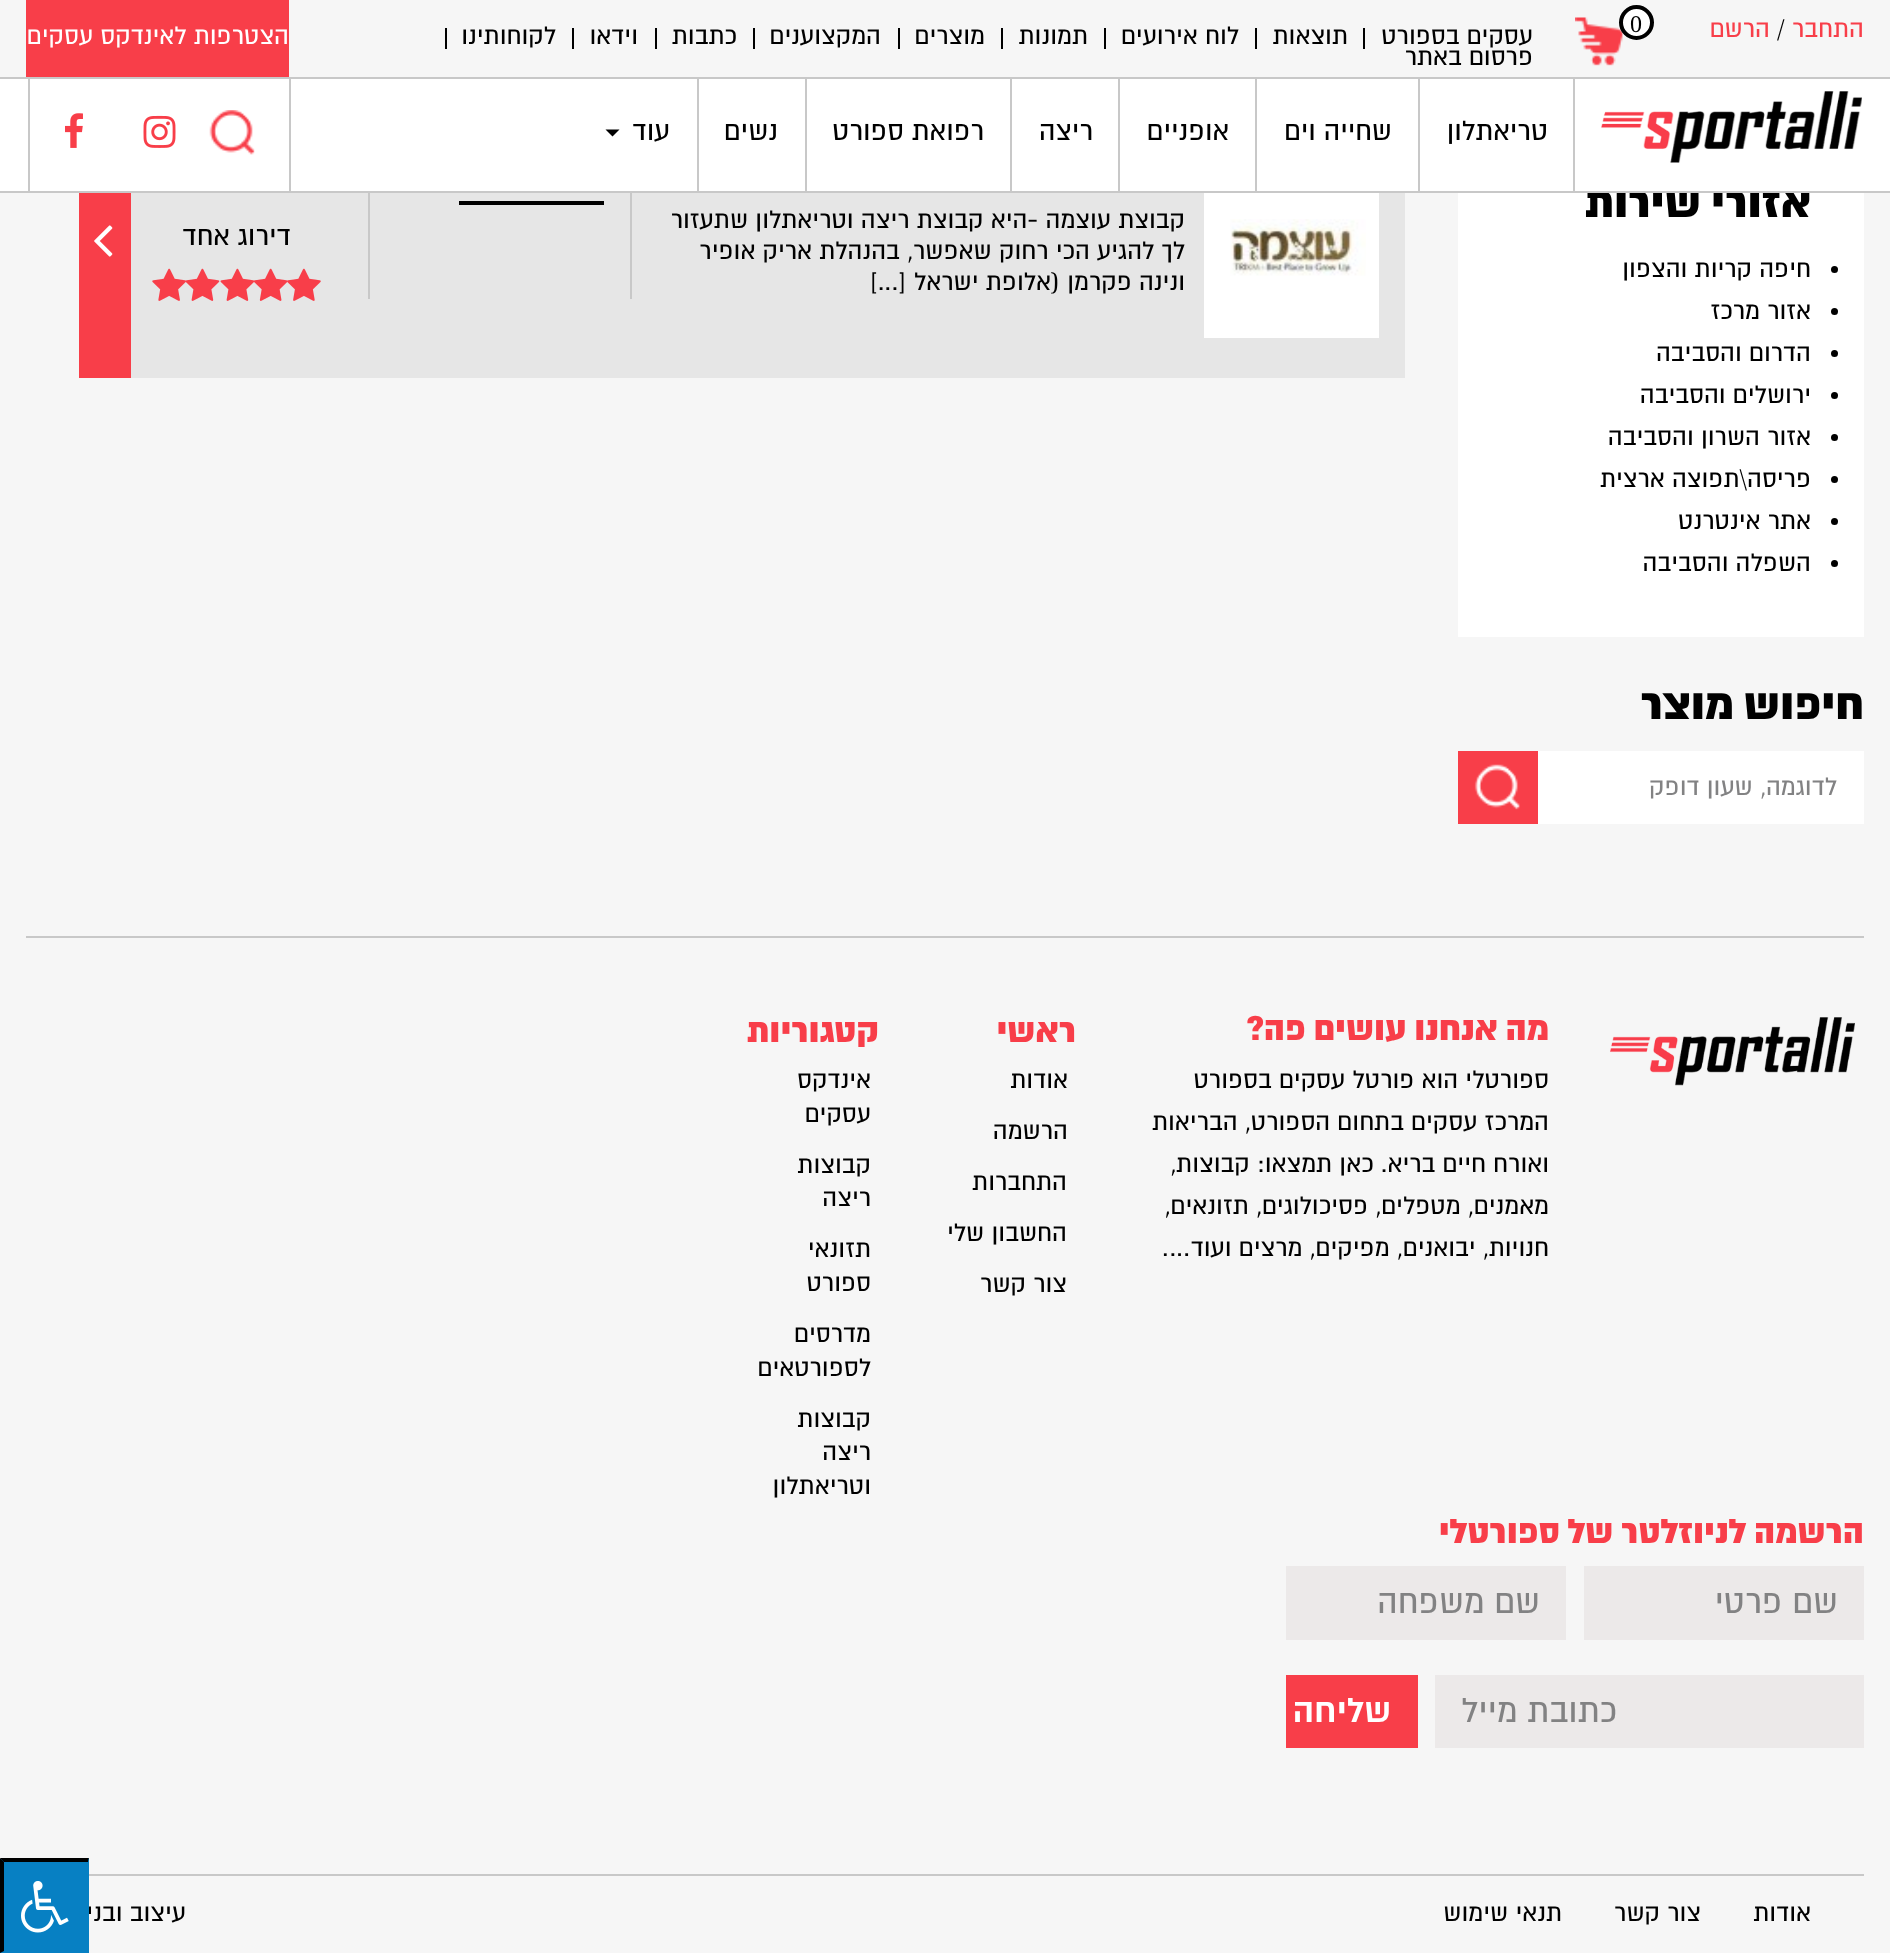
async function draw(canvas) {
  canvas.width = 1890
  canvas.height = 1953
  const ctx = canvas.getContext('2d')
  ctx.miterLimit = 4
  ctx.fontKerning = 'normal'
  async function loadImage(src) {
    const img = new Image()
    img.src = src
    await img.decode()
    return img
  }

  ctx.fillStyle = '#f6f6f6'
  ctx.fillRect(0, 0, 1890, 1953)
  ctx.direction = 'rtl'
  ctx.font = '28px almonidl'
  ctx.fillStyle = '#f83e49'
  ctx.fillText('התחבר', 1864, 37)
  ctx.direction = 'ltr'
  ctx.fillStyle = '#000'
  ctx.fillText('/', 1777, 37)
  ctx.direction = 'rtl'
  ctx.fillStyle = '#f83e49'
  ctx.fillText('הרשם', 1770, 37)
  ctx.drawImage(await loadImage('image0.png'), 1575, 17, 48, 49)
  ctx.fillStyle = '#fff'
  ctx.beginPath()
  ctx.arc(1636.5, 22.5, 15.5, 0, 2 * Math.PI)
  ctx.fill()
  ctx.strokeStyle = '#000'
  ctx.lineWidth = 4
  ctx.stroke()
  ctx.direction = 'ltr'
  ctx.font = '24px Liberation Serif'
  ctx.fillStyle = '#000'
  ctx.fillText('0', 1630, 32)
  ctx.fillRect(1363, 28, 2, 21)
  ctx.direction = 'rtl'
  ctx.font = '28px almonidl'
  ctx.fillText('עסקים בספורט', 1533, 44)
  ctx.fillRect(1255, 28, 2, 21)
  ctx.fillText('תוצאות', 1348, 44)
  ctx.fillRect(1104, 28, 2, 21)
  ctx.fillText('לוח אירועים', 1239, 44)
  ctx.fillRect(1001, 28, 2, 21)
  ctx.fillText('תמונות', 1088, 44)
  ctx.fillRect(898, 28, 2, 21)
  ctx.fillText('מוצרים', 985, 44)
  ctx.fillRect(753, 28, 2, 21)
  ctx.fillText('המקצוענים', 881, 44)
  ctx.fillRect(655, 28, 2, 21)
  ctx.fillText('כתבות', 737, 44)
  ctx.fillRect(572, 28, 2, 21)
  ctx.fillText('וידאו', 638, 44)
  ctx.fillRect(445, 28, 2, 21)
  ctx.fillText('לקוחותינו', 556, 44)
  ctx.fillText('פרסום באתר', 1533, 65)
  ctx.fillStyle = '#f83e49'
  ctx.fillRect(26, 0, 263, 77)
  ctx.fillStyle = '#fff'
  ctx.fillText('הצטרפות לאינדקס עסקים', 289, 44)
  ctx.fillRect(0, 79, 1890, 112)
  ctx.fillStyle = '#c8c8c8'
  ctx.fillRect(0, 77, 1890, 2)
  ctx.fillStyle = '#fff'
  ctx.fillRect(1458, 193, 406, 444)
  ctx.font = '900 49.75px almonidl'
  ctx.fillStyle = '#000'
  ctx.fillText('אזורי שירות', 1811, 217)
  ctx.fillStyle = '#c8c8c8'
  ctx.fillRect(0, 191, 1890, 2)
  ctx.fillRect(1573, 77, 2, 114)
  ctx.drawImage(await loadImage('image1.png'), 1601, 91, 261, 72)
  ctx.fillRect(1418, 79, 2, 112)
  ctx.font = '31px almonidl'
  ctx.fillStyle = '#000'
  ctx.fillText('טריאתלון', 1548, 140)
  ctx.fillStyle = '#c8c8c8'
  ctx.fillRect(1255, 79, 2, 112)
  ctx.fillStyle = '#000'
  ctx.fillText('שחייה וים', 1392, 140)
  ctx.fillStyle = '#c8c8c8'
  ctx.fillRect(1118, 79, 2, 112)
  ctx.fillStyle = '#000'
  ctx.fillText('אופניים', 1229, 140)
  ctx.fillStyle = '#c8c8c8'
  ctx.fillRect(1010, 79, 2, 112)
  ctx.fillStyle = '#000'
  ctx.fillText('ריצה', 1093, 140)
  ctx.fillStyle = '#c8c8c8'
  ctx.fillRect(805, 79, 2, 112)
  ctx.fillStyle = '#000'
  ctx.fillText('רפואת ספורט', 984, 140)
  ctx.fillStyle = '#c8c8c8'
  ctx.fillRect(697, 79, 2, 112)
  ctx.fillStyle = '#000'
  ctx.fillText('נשים', 778, 140)
  ctx.fillText('עוד', 670, 140)
  ctx.beginPath()
  ctx.moveTo(605.5, 129.5)
  ctx.lineTo(619.5, 129.5)
  ctx.lineTo(612.5, 136.5)
  ctx.closePath()
  ctx.fill()
  ctx.fillStyle = '#c8c8c8'
  ctx.fillRect(289, 79, 2, 114)
  ctx.fillRect(28, 79, 2, 114)
  ctx.drawImage(await loadImage('image2.png'), 209, 110, 46, 45)
  ctx.drawImage(await loadImage('image3.png'), 143, 115, 33, 33)
  ctx.drawImage(await loadImage('image4.png'), 65, 113, 18, 35)
  ctx.fillStyle = '#000'
  ctx.beginPath()
  ctx.arc(1834.5, 269.5, 3.5, 0, 2 * Math.PI)
  ctx.fill()
  ctx.font = '28px almonidl'
  ctx.fillText('חיפה קריות והצפון', 1811, 277)
  ctx.beginPath()
  ctx.arc(1834.5, 311.5, 3.5, 0, 2 * Math.PI)
  ctx.fill()
  ctx.fillText('אזור מרכז', 1811, 319)
  ctx.beginPath()
  ctx.arc(1834.5, 353.5, 3.5, 0, 2 * Math.PI)
  ctx.fill()
  ctx.fillText('הדרום והסביבה', 1811, 361)
  ctx.beginPath()
  ctx.arc(1834.5, 395.5, 3.5, 0, 2 * Math.PI)
  ctx.fill()
  ctx.fillText('ירושלים והסביבה', 1811, 403)
  ctx.beginPath()
  ctx.arc(1834.5, 437.5, 3.5, 0, 2 * Math.PI)
  ctx.fill()
  ctx.fillText('אזור השרון והסביבה', 1811, 445)
  ctx.beginPath()
  ctx.arc(1834.5, 479.5, 3.5, 0, 2 * Math.PI)
  ctx.fill()
  ctx.fillText('פריסה\\תפוצה ארצית', 1811, 487)
  ctx.beginPath()
  ctx.arc(1834.5, 521.5, 3.5, 0, 2 * Math.PI)
  ctx.fill()
  ctx.fillText('אתר אינטרנט', 1811, 529)
  ctx.beginPath()
  ctx.arc(1834.5, 563.5, 3.5, 0, 2 * Math.PI)
  ctx.fill()
  ctx.fillText('השפלה והסביבה', 1811, 571)
  ctx.font = '900 49.75px almonidl'
  ctx.fillText('חיפוש מוצר', 1864, 719)
  ctx.fillStyle = '#fff'
  ctx.fillRect(1538, 751, 326, 73)
  ctx.font = '28px almonidl'
  ctx.fillStyle = '#828283'
  ctx.fillText('לדוגמה, שעון דופק', 1837, 795)
  ctx.fillStyle = '#f83e49'
  ctx.fillRect(1458, 751, 80, 73)
  ctx.drawImage(await loadImage('image5.png'), 1474, 764, 46, 46)
  ctx.fillStyle = '#e6e6e6'
  ctx.fillRect(131, 193, 1274, 185)
  ctx.fillStyle = '#fff'
  ctx.fillRect(1204, 193, 175, 145)
  ctx.drawImage(await loadImage('image6.png'), 1230, 219, 136, 57)
  ctx.fillStyle = '#000'
  ctx.fillText('קבוצת עוצמה -היא קבוצת ריצה וטריאתלון שתעזור', 1185, 228)
  ctx.fillText('לך להגיע הכי רחוק שאפשר, בהנהלת אריק אופיר', 1185, 259)
  ctx.fillText('ונינה פקרמן (אלופת ישראל […]', 1185, 290)
  ctx.fillStyle = '#c8c8c8'
  ctx.fillRect(630, 193, 2, 106)
  ctx.fillRect(368, 193, 2, 106)
  ctx.fillStyle = '#000'
  ctx.fillRect(459, 201, 145, 4)
  ctx.font = '31px almonidl'
  ctx.fillText('דירוג אחד', 291, 245)
  ctx.drawImage(await loadImage('image9.png'), 220, 268, 35, 33)
  ctx.drawImage(await loadImage('image8.png'), 254, 268, 34, 33)
  ctx.drawImage(await loadImage('image7.png'), 287, 268, 34, 33)
  ctx.drawImage(await loadImage('image11.png'), 152, 268, 34, 33)
  ctx.drawImage(await loadImage('image10.png'), 185, 268, 35, 33)
  ctx.fillStyle = '#f83e49'
  ctx.fillRect(79, 193, 52, 185)
  ctx.drawImage(await loadImage('image12.png'), 94, 225, 19, 32)
  ctx.fillStyle = '#c8c8c8'
  ctx.fillRect(26, 936, 1838, 2)
  ctx.drawImage(await loadImage('image13.png'), 1610, 1017, 245, 69)
  ctx.font = '900 38.5px almonidl'
  ctx.fillStyle = '#f83e49'
  ctx.fillText('מה אנחנו עושים פה?', 1549, 1040)
  ctx.font = '28px almonidl'
  ctx.fillStyle = '#000'
  ctx.fillText('ספורטלי הוא פורטל עסקים בספורט', 1549, 1088)
  ctx.fillText('המרכז עסקים בתחום הספורט, הבריאות', 1549, 1130)
  ctx.fillText('ואורח חיים בריא. כאן תמצאו: קבוצות,', 1549, 1172)
  ctx.fillText('מאמנים, מטפלים, פסיכולוגים, תזונאים,', 1549, 1214)
  ctx.fillText('חנויות, יבואנים, מפיקים, מרצים ועוד….', 1549, 1256)
  ctx.font = '900 38.5px almonidl'
  ctx.fillStyle = '#f83e49'
  ctx.fillText('ראשי', 1076, 1042)
  ctx.font = '28px almonidl'
  ctx.fillStyle = '#000'
  ctx.fillText('אודות', 1068, 1088)
  ctx.fillText('הרשמה', 1068, 1139)
  ctx.fillText('התחברות', 1067, 1190)
  ctx.fillText('החשבון שלי', 1067, 1241)
  ctx.fillText('צור קשר', 1067, 1292)
  ctx.font = '900 38.5px almonidl'
  ctx.fillStyle = '#f83e49'
  ctx.fillText('קטגוריות', 879, 1042)
  ctx.font = '28px almonidl'
  ctx.fillStyle = '#000'
  ctx.fillText('אינדקס', 871, 1088)
  ctx.fillText('עסקים', 871, 1122)
  ctx.fillText('קבוצות', 871, 1173)
  ctx.fillText('ריצה', 871, 1206)
  ctx.fillText('תזונאי', 871, 1257)
  ctx.fillText('ספורט', 871, 1291)
  ctx.fillText('מדרסים', 871, 1342)
  ctx.fillText('לספורטאים', 871, 1376)
  ctx.fillText('קבוצות', 871, 1427)
  ctx.fillText('ריצה', 871, 1460)
  ctx.fillText('וטריאתלון', 871, 1494)
  ctx.font = '900 38.5px almonidl'
  ctx.fillStyle = '#f83e49'
  ctx.fillText('הרשמה לניוזלטר של ספורטלי', 1864, 1543)
  ctx.fillStyle = '#ece9e9'
  ctx.fillRect(1584, 1566, 280, 74)
  ctx.font = '38.5px almonidl'
  ctx.fillStyle = '#828283'
  ctx.fillText('שם פרטי', 1838, 1613)
  ctx.fillStyle = '#ece9e9'
  ctx.fillRect(1286, 1566, 280, 74)
  ctx.fillStyle = '#828283'
  ctx.fillText('שם משפחה', 1540, 1613)
  ctx.fillStyle = '#ece9e9'
  ctx.fillRect(1435, 1675, 429, 73)
  ctx.fillStyle = '#828283'
  ctx.fillText('כתובת מייל', 1617, 1722)
  ctx.fillStyle = '#f83e49'
  ctx.fillRect(1286, 1675, 132, 73)
  ctx.font = 'bold 38.5px almonidl'
  ctx.fillStyle = '#fff'
  ctx.fillText('שליחה', 1391, 1722)
  ctx.fillStyle = '#c8c8c8'
  ctx.fillRect(89, 1874, 1775, 2)
  ctx.font = '28px almonidl'
  ctx.fillStyle = '#000'
  ctx.fillText('אודות', 1811, 1921)
  ctx.fillText('צור קשר', 1701, 1921)
  ctx.fillText('תנאי שימוש', 1562, 1921)
  ctx.fillText('עיצוב ובניה', 186, 1921)
  ctx.fillStyle = '#0780c3'
  ctx.fillRect(0, 1859, 89, 94)
  ctx.fillStyle = '#000'
  ctx.beginPath()
  ctx.moveTo(0, 1858)
  ctx.lineTo(89, 1858)
  ctx.lineTo(88, 1862)
  ctx.lineTo(4, 1862)
  ctx.closePath()
  ctx.fill()
  ctx.fillStyle = '#0780c3'
  ctx.beginPath()
  ctx.moveTo(89, 1858)
  ctx.lineTo(89, 1953)
  ctx.lineTo(88, 1951)
  ctx.lineTo(88, 1862)
  ctx.closePath()
  ctx.fill()
  ctx.fillStyle = '#000'
  ctx.beginPath()
  ctx.moveTo(0, 1953)
  ctx.lineTo(0, 1858)
  ctx.lineTo(4, 1862)
  ctx.lineTo(4, 1951)
  ctx.closePath()
  ctx.fill()
  ctx.drawImage(await loadImage('image14.png'), 21, 1881, 48, 52)
}

draw(document.querySelector('canvas'))
